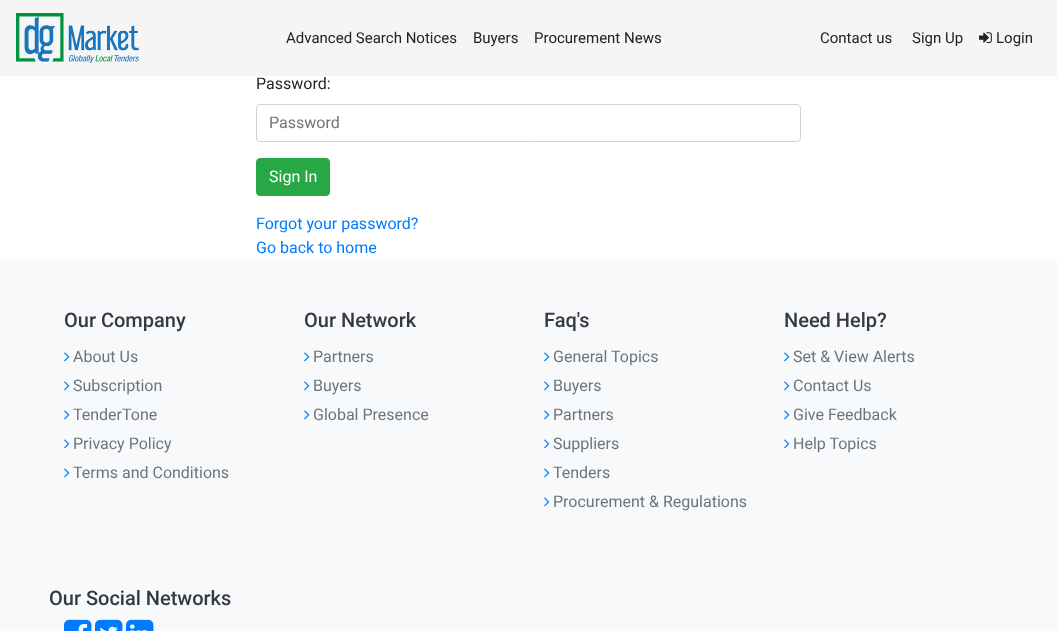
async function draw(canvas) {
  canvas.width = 1057
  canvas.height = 631
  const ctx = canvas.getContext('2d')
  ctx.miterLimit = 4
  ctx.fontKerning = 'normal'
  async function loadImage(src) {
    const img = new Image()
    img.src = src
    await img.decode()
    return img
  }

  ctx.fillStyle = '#fff'
  ctx.fillRect(0, 0, 1057, 631)
  ctx.fillStyle = '#f5f5f5'
  ctx.fillRect(0, 0, 1057, 76)
  ctx.drawImage(await loadImage('image0.png'), 16, 13, 123, 50)
  ctx.font = '15px Roboto'
  ctx.fillStyle = '#222'
  ctx.fillText('Advanced Search Notices', 286, 43)
  ctx.fillText('Buyers', 473, 43)
  ctx.fillText('Procurement News', 534, 43)
  ctx.fillText('Contact us', 820, 43)
  ctx.fillText('Sign Up', 912, 43)
  ctx.drawImage(await loadImage('image1.png'), 979, 32, 13, 11)
  ctx.fillText('Login', 996, 43)
  ctx.font = '16px Roboto'
  ctx.fillStyle = '#212529'
  ctx.fillText('Password:', 256, 89)
  ctx.beginPath()
  ctx.roundRect(256.5, 104.5, 544, 37, 3.5)
  ctx.strokeStyle = '#ced4da'
  ctx.stroke()
  ctx.fillStyle = '#6c757d'
  ctx.fillText('Password', 269, 128)
  ctx.fillStyle = '#28a745'
  ctx.beginPath()
  ctx.roundRect(256.5, 158.5, 73, 37, 3.5)
  ctx.fill()
  ctx.strokeStyle = '#28a745'
  ctx.stroke()
  ctx.fillStyle = '#fff'
  ctx.fillText('Sign In', 269, 182)
  ctx.fillStyle = '#007bff'
  ctx.fillText('Forgot your password?', 256, 229)
  ctx.fillText('Go back to home', 256, 253)
  ctx.fillStyle = '#f8f9fa'
  ctx.fillRect(0, 260, 1057, 371)
  ctx.font = '500 20px Roboto'
  ctx.fillStyle = '#343a40'
  ctx.fillText('Our Company', 64, 327)
  ctx.drawImage(await loadImage('image2.png'), 64, 352, 6, 10)
  ctx.font = '16px Roboto'
  ctx.fillStyle = '#6c757d'
  ctx.fillText('About Us', 73, 362)
  ctx.drawImage(await loadImage('image2.png'), 64, 381, 6, 10)
  ctx.fillText('Subscription', 73, 391)
  ctx.drawImage(await loadImage('image2.png'), 64, 410, 6, 10)
  ctx.fillText('TenderTone', 73, 420)
  ctx.drawImage(await loadImage('image2.png'), 64, 439, 6, 10)
  ctx.fillText('Privacy Policy', 73, 449)
  ctx.drawImage(await loadImage('image2.png'), 64, 468, 6, 10)
  ctx.fillText('Terms and Conditions', 73, 478)
  ctx.font = '500 20px Roboto'
  ctx.fillStyle = '#343a40'
  ctx.fillText('Our Network', 304, 327)
  ctx.drawImage(await loadImage('image2.png'), 304, 352, 6, 10)
  ctx.font = '16px Roboto'
  ctx.fillStyle = '#6c757d'
  ctx.fillText('Partners', 313, 362)
  ctx.drawImage(await loadImage('image2.png'), 304, 381, 6, 10)
  ctx.fillText('Buyers', 313, 391)
  ctx.drawImage(await loadImage('image2.png'), 304, 410, 6, 10)
  ctx.fillText('Global Presence', 313, 420)
  ctx.font = '500 20px Roboto'
  ctx.fillStyle = '#343a40'
  ctx.fillText('Faq\'s', 544, 327)
  ctx.drawImage(await loadImage('image2.png'), 544, 352, 6, 10)
  ctx.font = '16px Roboto'
  ctx.fillStyle = '#6c757d'
  ctx.fillText('General Topics', 553, 362)
  ctx.drawImage(await loadImage('image2.png'), 544, 381, 6, 10)
  ctx.fillText('Buyers', 553, 391)
  ctx.drawImage(await loadImage('image2.png'), 544, 410, 6, 10)
  ctx.fillText('Partners', 553, 420)
  ctx.drawImage(await loadImage('image2.png'), 544, 439, 6, 10)
  ctx.fillText('Suppliers', 553, 449)
  ctx.drawImage(await loadImage('image2.png'), 544, 468, 6, 10)
  ctx.fillText('Tenders', 553, 478)
  ctx.drawImage(await loadImage('image2.png'), 544, 497, 6, 10)
  ctx.fillText('Procurement & Regulations', 553, 507)
  ctx.font = '500 20px Roboto'
  ctx.fillStyle = '#343a40'
  ctx.fillText('Need Help?', 784, 327)
  ctx.drawImage(await loadImage('image2.png'), 784, 352, 6, 10)
  ctx.font = '16px Roboto'
  ctx.fillStyle = '#6c757d'
  ctx.fillText('Set & View Alerts', 793, 362)
  ctx.drawImage(await loadImage('image2.png'), 784, 381, 6, 10)
  ctx.fillText('Contact Us', 793, 391)
  ctx.drawImage(await loadImage('image2.png'), 784, 410, 6, 10)
  ctx.fillText('Give Feedback', 793, 420)
  ctx.drawImage(await loadImage('image2.png'), 784, 439, 6, 10)
  ctx.fillText('Help Topics', 793, 449)
  ctx.font = '500 20px Roboto'
  ctx.fillStyle = '#343a40'
  ctx.fillText('Our Social Networks', 49, 605)
  ctx.drawImage(await loadImage('image3.png'), 64, 619, 28, 12)
  ctx.drawImage(await loadImage('image4.png'), 95, 619, 28, 12)
  ctx.drawImage(await loadImage('image5.png'), 126, 619, 28, 12)
}

draw(document.querySelector('canvas'))
